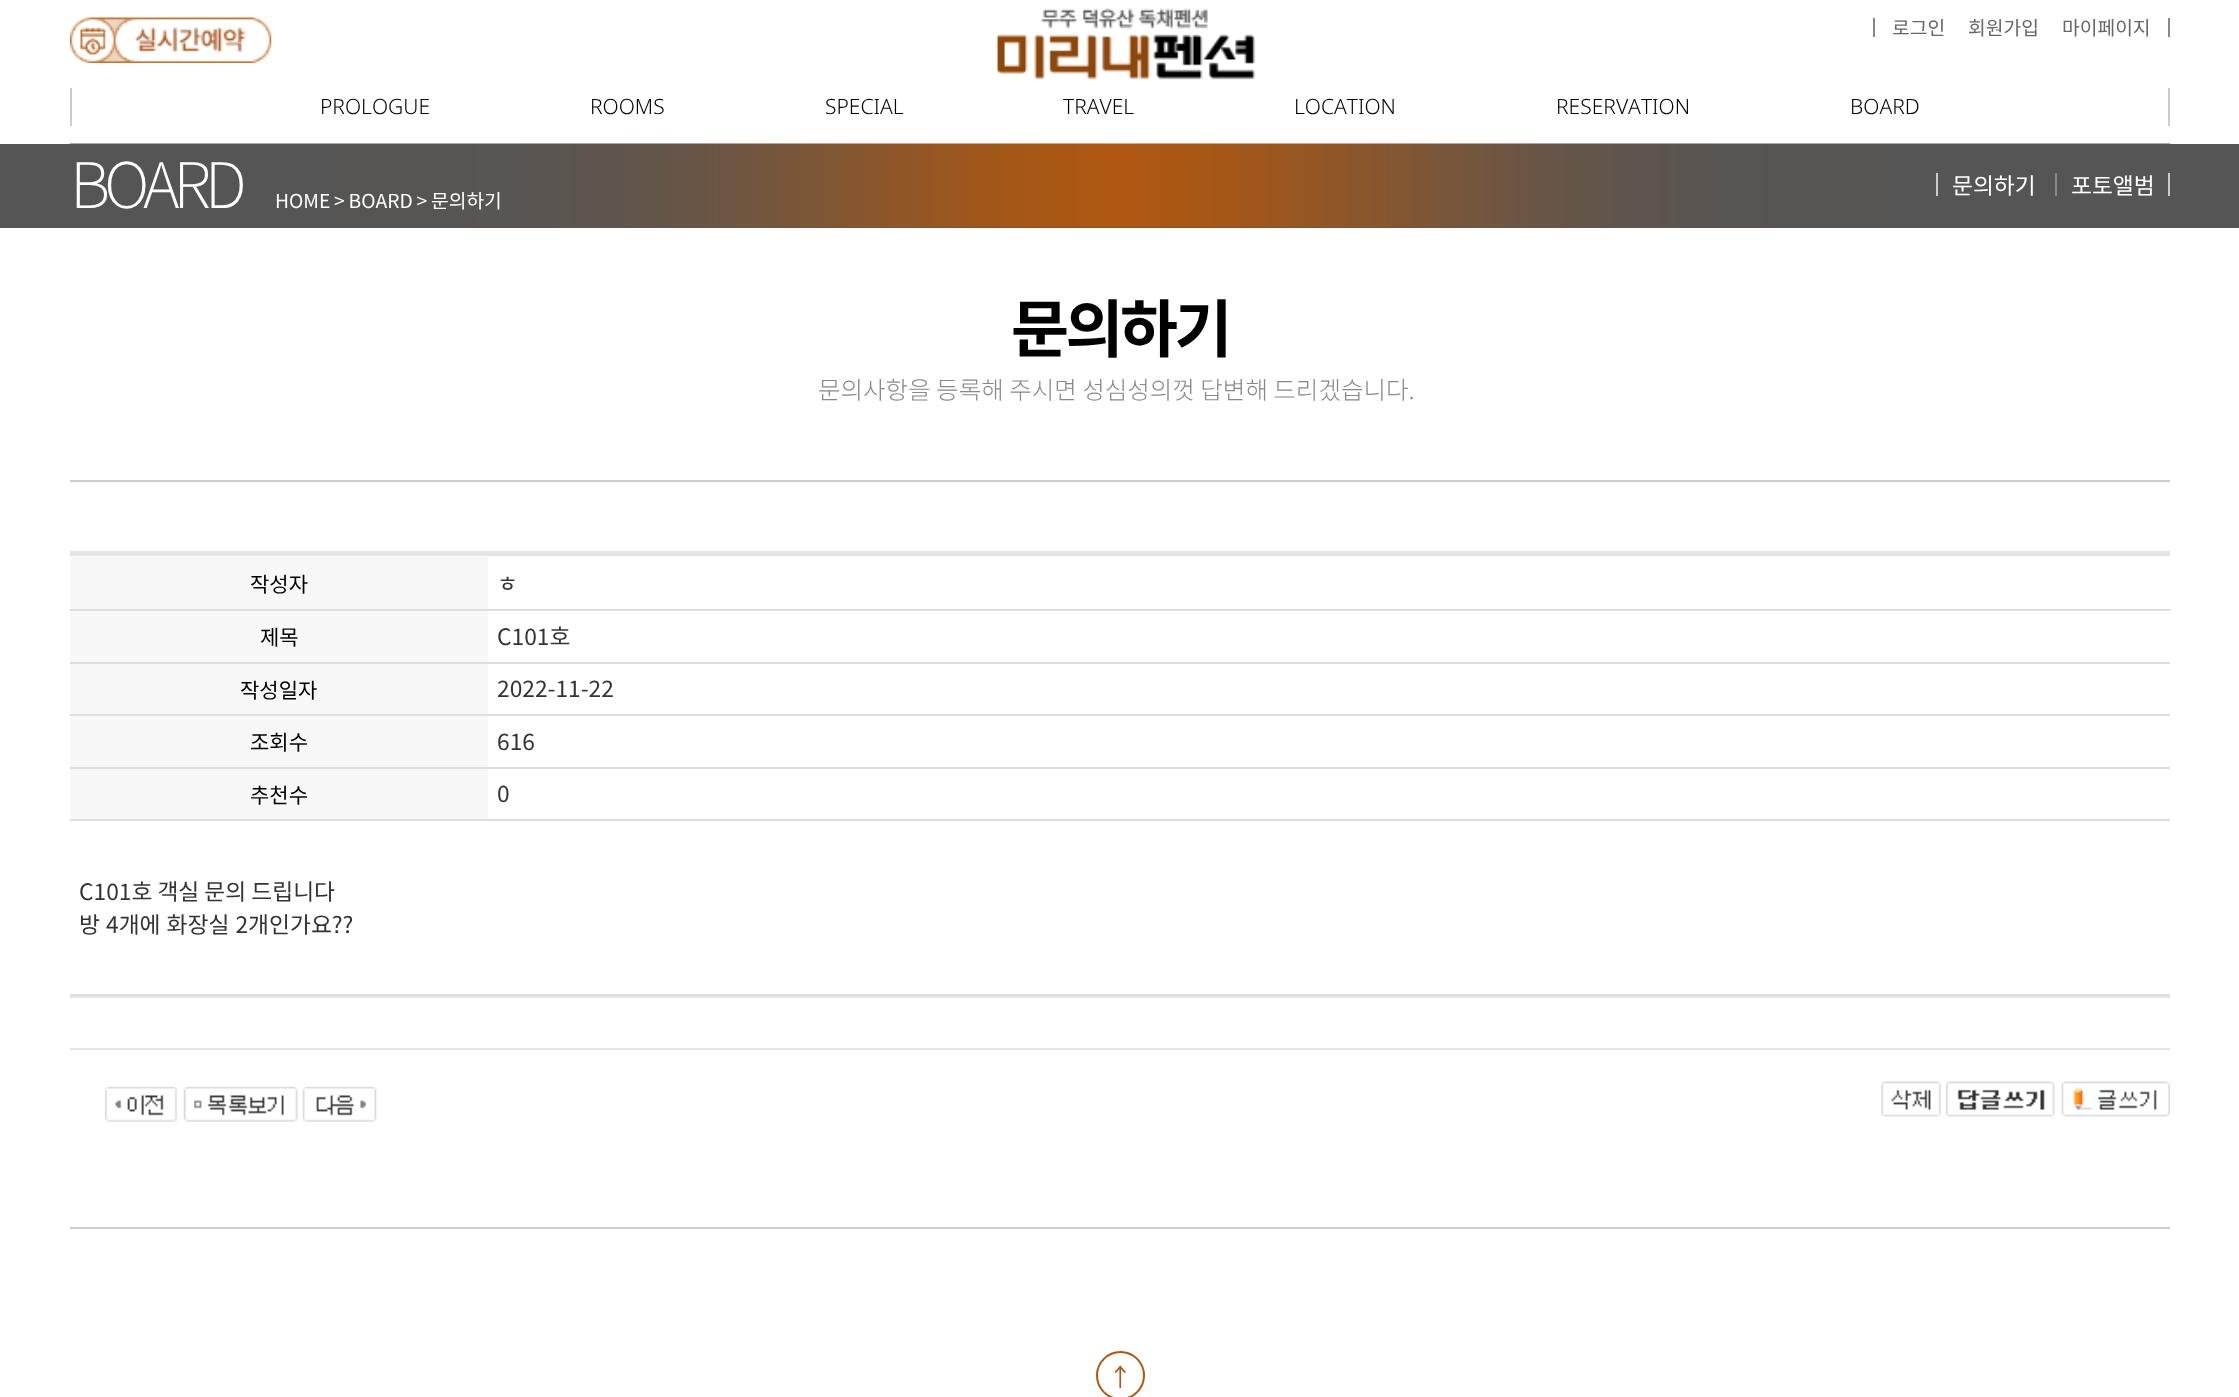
async function draw(canvas) {
  canvas.width = 2239
  canvas.height = 1397
  const ctx = canvas.getContext('2d')
  ctx.miterLimit = 4
  ctx.fontKerning = 'none'
  async function loadImage(src) {
    const img = new Image()
    img.src = src
    await img.decode()
    return img
  }

  ctx.fillStyle = '#fff'
  ctx.fillRect(0, 0, 2239, 1397)
  ctx.drawImage(await loadImage('image0.png'), 70, 17, 202, 46)
  ctx.drawImage(await loadImage('image1.png'), 997, 8, 259, 72)
  ctx.fillStyle = '#888'
  ctx.fillRect(2168, 18, 2, 19)
  ctx.fillRect(1873, 18, 2, 19)
  ctx.font = '19.25px Noto Sans KR'
  ctx.fillStyle = '#666'
  ctx.fillText('로그인', 1892, 35)
  ctx.fillText('회원가입', 1968, 35)
  ctx.fillText('마이페이지', 2062, 35)
  ctx.fillStyle = '#ccc'
  ctx.fillRect(2168, 88, 2, 38)
  ctx.fillRect(70, 88, 2, 38)
  ctx.font = '300 21px Noto Sans'
  ctx.fillStyle = '#000'
  ctx.fillText('PROLOGUE', 320, 114)
  ctx.fillText('ROOMS', 590, 114)
  ctx.fillText('SPECIAL', 825, 114)
  ctx.fillText('TRAVEL', 1063, 114)
  ctx.fillText('LOCATION', 1294, 114)
  ctx.fillText('RESERVATION', 1556, 114)
  ctx.fillText('BOARD', 1850, 114)
  ctx.fillStyle = '#555'
  ctx.fillRect(0, 144, 2239, 84)
  ctx.drawImage(await loadImage('image2.png'), 70, 143, 2100, 85)
  ctx.letterSpacing = '-6.25px'
  ctx.font = '200 63px Noto Sans KR'
  ctx.fillStyle = '#fff'
  ctx.fillText('BOARD', 70, 208)
  ctx.letterSpacing = '0px'
  ctx.wordSpacing = '-0.5px'
  ctx.font = '19.25px Noto Sans KR'
  ctx.fillText('HOME > BOARD > 문의하기', 275, 208)
  ctx.fillStyle = '#ccc'
  ctx.fillRect(1936, 173, 2, 23)
  ctx.wordSpacing = '0px'
  ctx.font = '22.75px Noto Sans KR'
  ctx.fillStyle = '#fff'
  ctx.fillText('문의하기', 1952, 194)
  ctx.fillStyle = '#ccc'
  ctx.fillRect(2168, 173, 2, 23)
  ctx.fillStyle = '#888'
  ctx.fillRect(2055, 173, 2, 23)
  ctx.fillStyle = '#fff'
  ctx.fillText('포토앨범', 2071, 194)
  ctx.letterSpacing = '-3.5px'
  ctx.font = 'bold 63px Noto Sans KR'
  ctx.fillStyle = '#000'
  ctx.fillText('문의하기', 1011, 352)
  ctx.letterSpacing = '0px'
  ctx.font = '300 24.5px Noto Sans KR'
  ctx.fillStyle = '#888'
  ctx.fillText('문의사항을 등록해 주시면 성심성의껏 답변해 드리겠습니다.', 818, 399)
  ctx.fillStyle = '#ccc'
  ctx.fillRect(70, 480, 2100, 2)
  ctx.fillStyle = '#e5e5e5'
  ctx.fillRect(70, 551, 2100, 5)
  ctx.fillStyle = '#f7f7f7'
  ctx.fillRect(70, 557, 418, 52)
  ctx.font = '21px Noto Sans KR'
  ctx.fillStyle = '#000'
  ctx.fillText('작성자', 250, 592)
  ctx.fillStyle = '#ddd'
  ctx.fillRect(70, 609, 2100, 2)
  ctx.font = '22.75px Noto Sans KR'
  ctx.fillStyle = '#333'
  ctx.fillText('ㅎ', 497, 592)
  ctx.fillStyle = '#f7f7f7'
  ctx.fillRect(70, 611, 418, 51)
  ctx.font = '21px Noto Sans KR'
  ctx.fillStyle = '#000'
  ctx.fillText('제목', 260, 645)
  ctx.fillStyle = '#ddd'
  ctx.fillRect(70, 662, 2100, 2)
  ctx.font = '22.75px Noto Sans KR'
  ctx.fillStyle = '#333'
  ctx.fillText('C101호', 497, 645)
  ctx.fillStyle = '#f7f7f7'
  ctx.fillRect(70, 664, 418, 50)
  ctx.font = '21px Noto Sans KR'
  ctx.fillStyle = '#000'
  ctx.fillText('작성일자', 240, 698)
  ctx.fillStyle = '#ddd'
  ctx.fillRect(70, 714, 2100, 2)
  ctx.font = '22.75px Noto Sans KR'
  ctx.fillStyle = '#333'
  ctx.fillText('2022-11-22', 497, 697)
  ctx.fillStyle = '#f7f7f7'
  ctx.fillRect(70, 716, 418, 51)
  ctx.font = '21px Noto Sans KR'
  ctx.fillStyle = '#000'
  ctx.fillText('조회수', 250, 750)
  ctx.fillStyle = '#ddd'
  ctx.fillRect(70, 767, 2100, 2)
  ctx.font = '22.75px Noto Sans KR'
  ctx.fillStyle = '#333'
  ctx.fillText('616', 497, 750)
  ctx.fillStyle = '#f7f7f7'
  ctx.fillRect(70, 769, 418, 50)
  ctx.font = '21px Noto Sans KR'
  ctx.fillStyle = '#000'
  ctx.fillText('추천수', 250, 803)
  ctx.fillStyle = '#ddd'
  ctx.fillRect(70, 819, 2100, 2)
  ctx.font = '22.75px Noto Sans KR'
  ctx.fillStyle = '#333'
  ctx.fillText('0', 497, 802)
  ctx.fillStyle = '#ddd'
  ctx.fillRect(70, 994, 2100, 2)
  ctx.fillStyle = '#333'
  ctx.fillText('C101호 객실 문의 드립니다', 79, 900)
  ctx.wordSpacing = '1px'
  ctx.fillText('방 4개에 화장실 2개인가요??', 79, 933)
  ctx.fillStyle = '#e5e5e5'
  ctx.fillRect(70, 996, 2100, 2)
  ctx.fillRect(70, 1048, 2100, 2)
  ctx.drawImage(await loadImage('image3.png'), 105, 1086, 72, 36)
  ctx.drawImage(await loadImage('image4.png'), 183, 1086, 115, 36)
  ctx.drawImage(await loadImage('image5.png'), 302, 1086, 75, 36)
  ctx.drawImage(await loadImage('image6.png'), 1881, 1081, 60, 36)
  ctx.drawImage(await loadImage('image7.png'), 1946, 1081, 109, 36)
  ctx.drawImage(await loadImage('image8.png'), 2061, 1081, 109, 36)
  ctx.fillStyle = '#ccc'
  ctx.fillRect(70, 1227, 2100, 2)
  ctx.beginPath()
  ctx.arc(1120.5, 1375.5, 23.5, 0, 2 * Math.PI)
  ctx.strokeStyle = '#ae5711'
  ctx.lineWidth = 2
  ctx.stroke()
  ctx.wordSpacing = '0px'
  ctx.font = '24.5px Noto Sans KR'
  ctx.fillStyle = '#ae5711'
  ctx.fillText('↑', 1108, 1386)
}

draw(document.querySelector('canvas'))
